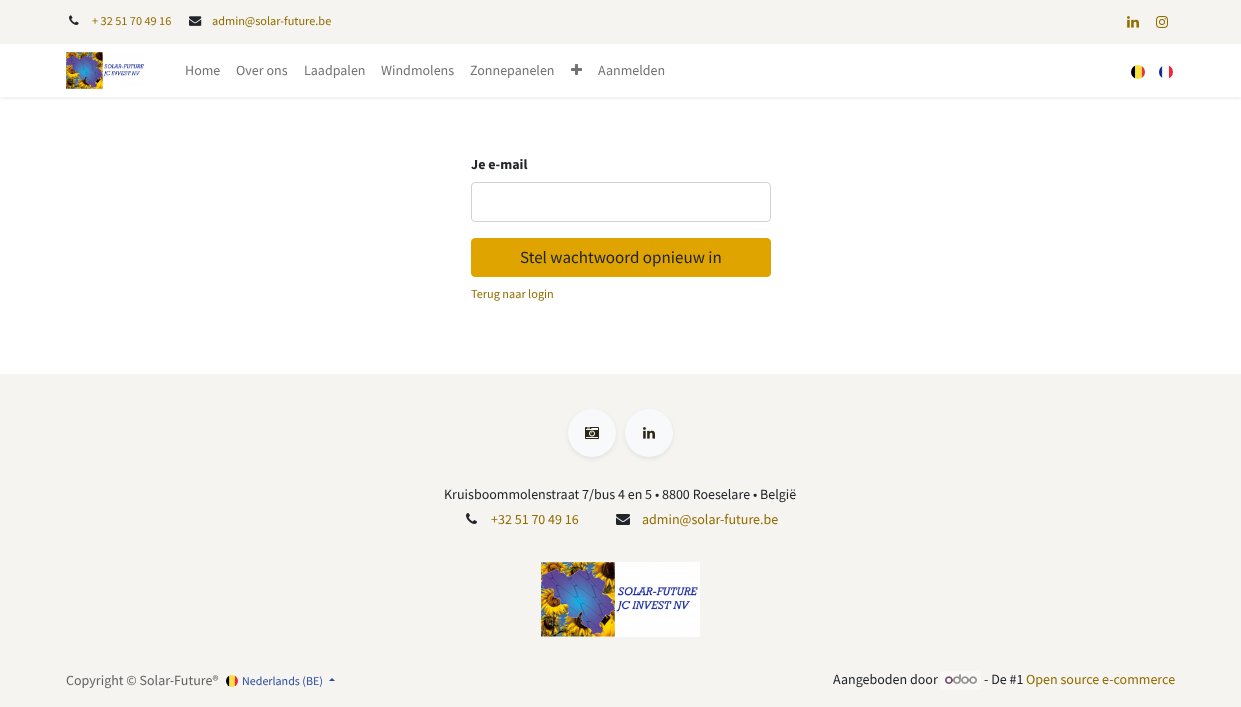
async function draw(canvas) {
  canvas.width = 1241
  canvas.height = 707
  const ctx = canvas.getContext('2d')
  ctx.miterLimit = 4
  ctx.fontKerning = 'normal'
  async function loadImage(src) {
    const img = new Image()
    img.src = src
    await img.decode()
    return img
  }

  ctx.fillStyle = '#fff'
  ctx.fillRect(0, 0, 1241, 707)
  ctx.fillStyle = '#f5f4f0'
  ctx.fillRect(0, 0, 1241, 44)
  ctx.drawImage(await loadImage('image0.png'), 69, 15, 10, 10)
  ctx.font = '12.25px Source Sans Pro'
  ctx.fillStyle = '#936c00'
  ctx.fillText('+ 32 51 70 49 16', 92, 25)
  ctx.drawImage(await loadImage('image1.png'), 189, 16, 13, 10)
  ctx.fillText('admin@solar-future.be', 212, 25)
  ctx.drawImage(await loadImage('image2.png'), 1127, 16, 12, 12)
  ctx.drawImage(await loadImage('image3.png'), 1156, 16, 12, 12)
  ctx.save()
  ctx.beginPath()
  ctx.rect(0, 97, 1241, 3)
  ctx.clip()
  ctx.fillStyle = '#00000012'
  ctx.filter = 'blur(2px)'
  ctx.beginPath()
  ctx.rect(0, 46, 1241, 53)
  ctx.fill()
  ctx.filter = 'none'
  ctx.restore()
  ctx.drawImage(await loadImage('image4.png'), 66, 52, 79, 37)
  ctx.font = '14px Source Sans Pro'
  ctx.fillStyle = '#737373'
  ctx.fillText('Home', 185, 75)
  ctx.fillText('Over ons', 236, 75)
  ctx.fillText('Laadpalen', 304, 75)
  ctx.fillText('Windmolens', 381, 75)
  ctx.fillText('Zonnepanelen', 470, 75)
  ctx.drawImage(await loadImage('image5.png'), 571, 64, 11, 11)
  ctx.fillText('Aanmelden', 598, 75)
  ctx.drawImage(await loadImage('image6.png'), 1131, 65, 14, 14)
  ctx.drawImage(await loadImage('image7.png'), 1159, 65, 14, 14)
  ctx.font = 'bold 14px Source Sans Pro'
  ctx.fillStyle = '#212529'
  ctx.fillText('Je e-mail', 471, 169)
  ctx.beginPath()
  ctx.roundRect(471.5, 182.5, 299, 39, 3.5)
  ctx.strokeStyle = '#ced4da'
  ctx.stroke()
  ctx.fillStyle = '#dfa400'
  ctx.beginPath()
  ctx.roundRect(471.5, 238.5, 299, 38, 3.5)
  ctx.fill()
  ctx.strokeStyle = '#dfa400'
  ctx.stroke()
  ctx.font = '17px Source Sans Pro'
  ctx.fillStyle = '#212529'
  ctx.fillText('Stel wachtwoord opnieuw in', 520, 263)
  ctx.font = '12.25px Source Sans Pro'
  ctx.fillStyle = '#936c00'
  ctx.fillText('Terug naar login', 471, 298)
  ctx.fillStyle = '#f5f4f0'
  ctx.fillRect(0, 374, 1241, 333)
  ctx.fillStyle = '#00000012'
  ctx.filter = 'blur(2px)'
  ctx.beginPath()
  ctx.roundRect(568, 411, 48, 48, 24)
  ctx.fill()
  ctx.filter = 'none'
  ctx.fillStyle = '#f8f9fa'
  ctx.beginPath()
  ctx.arc(592, 433, 24, 0, 2 * Math.PI)
  ctx.fill()
  ctx.drawImage(await loadImage('image8.png'), 585, 427, 14, 12)
  ctx.fillStyle = '#00000012'
  ctx.filter = 'blur(2px)'
  ctx.beginPath()
  ctx.roundRect(625, 411, 48, 48, 24)
  ctx.fill()
  ctx.filter = 'none'
  ctx.fillStyle = '#f8f9fa'
  ctx.beginPath()
  ctx.arc(649, 433, 24, 0, 2 * Math.PI)
  ctx.fill()
  ctx.drawImage(await loadImage('image9.png'), 643, 427, 12, 12)
  ctx.font = '14px Source Sans Pro'
  ctx.fillStyle = '#212529'
  ctx.fillText('Kruisboommolenstraat 7/bus 4 en 5', 444, 499)
  ctx.fillText('•', 655, 499)
  ctx.fillText('8800 Roeselare', 662, 499)
  ctx.fillText('• België', 753, 499)
  ctx.drawImage(await loadImage('image10.png'), 466, 513, 11, 11)
  ctx.fillStyle = '#936c00'
  ctx.fillText('+32 51 70 49 16', 491, 524)
  ctx.drawImage(await loadImage('image11.png'), 616, 514, 14, 11)
  ctx.fillText('admin@solar-future.be', 642, 524)
  ctx.drawImage(await loadImage('image12.png'), 541, 562, 159, 75)
  ctx.fillStyle = '#616365'
  ctx.fillText('Copyright © Solar-Future®', 66, 685)
  ctx.drawImage(await loadImage('image13.png'), 226, 675, 12, 12)
  ctx.font = '12px Source Sans Pro'
  ctx.fillStyle = '#2b4aa0'
  ctx.fillText('Nederlands (BE)', 242, 685)
  ctx.beginPath()
  ctx.moveTo(335, 681)
  ctx.lineTo(329, 681)
  ctx.lineTo(332, 678)
  ctx.closePath()
  ctx.fill()
  ctx.font = '14px Source Sans Pro'
  ctx.fillStyle = '#212529'
  ctx.fillText('Aangeboden door', 833, 684)
  ctx.fillStyle = '#f9f8f6'
  ctx.beginPath()
  ctx.roundRect(940, 671, 41, 19, 4)
  ctx.fill()
  ctx.drawImage(await loadImage('image14.png'), 945, 674, 32, 10)
  ctx.fillStyle = '#212529'
  ctx.fillText('- De #1', 984, 684)
  ctx.fillStyle = '#936c00'
  ctx.fillText('Open source e-commerce', 1026, 684)
}

draw(document.querySelector('canvas'))
